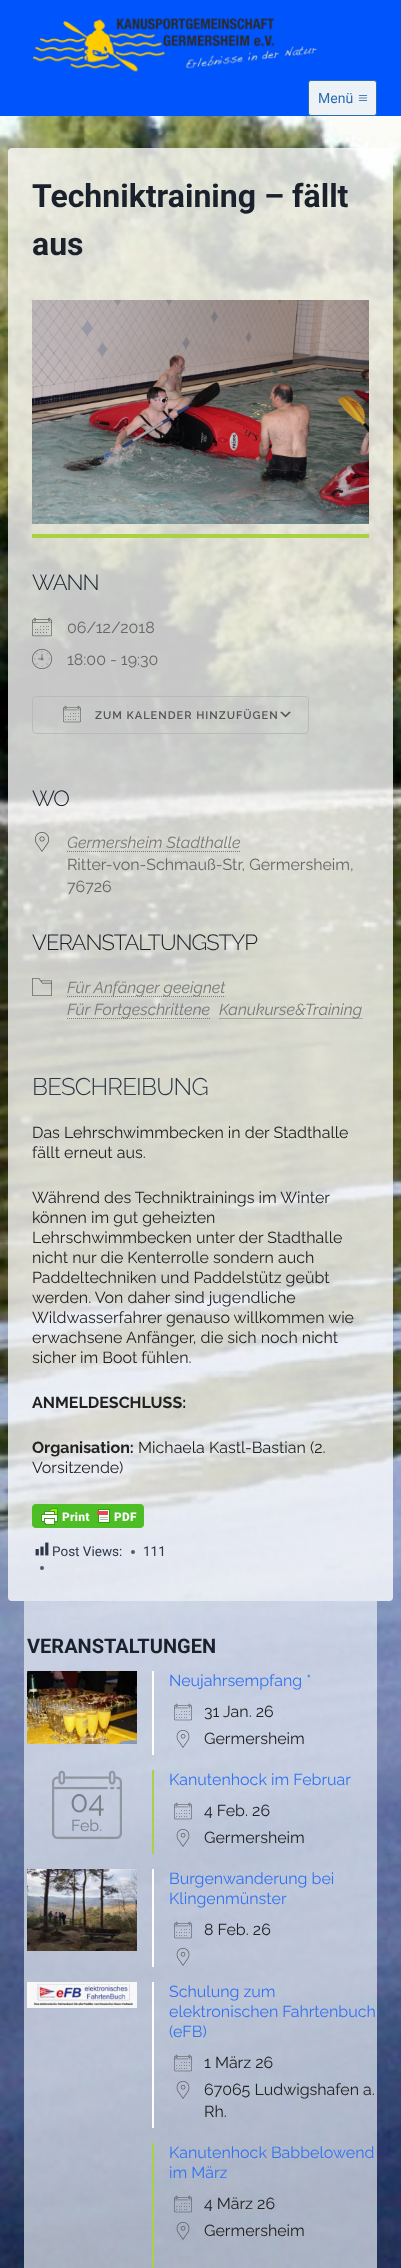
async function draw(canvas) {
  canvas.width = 401
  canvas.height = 2268
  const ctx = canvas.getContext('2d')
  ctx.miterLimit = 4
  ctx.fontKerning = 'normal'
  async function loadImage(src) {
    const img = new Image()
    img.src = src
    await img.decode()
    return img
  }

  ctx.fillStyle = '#fff'
  ctx.fillRect(0, 0, 401, 2268)
  ctx.drawImage(await loadImage('image0.png'), 0, 116, 401, 2152)
  ctx.fillStyle = '#0054fb'
  ctx.fillRect(0, 0, 401, 116)
  ctx.drawImage(await loadImage('image1.png'), 33, 18, 284, 54)
  ctx.fillStyle = '#edf2f7'
  ctx.beginPath()
  ctx.roundRect(308.5, 80.5, 68, 35, 2.5)
  ctx.fill()
  ctx.strokeStyle = '#2b6cb0'
  ctx.stroke()
  ctx.font = '14px Roboto'
  ctx.fillStyle = '#2b6cb0'
  ctx.fillText('Menü', 318, 103)
  ctx.drawImage(await loadImage('image2.png'), 358, 95, 10, 6)
  ctx.fillStyle = '#ffffffc7'
  ctx.beginPath()
  ctx.roundRect(8, 148, 385, 1453, 4)
  ctx.fill()
  ctx.font = 'bold 32px Roboto'
  ctx.fillStyle = '#1a202c'
  ctx.fillText('Techniktraining – fällt', 32, 207)
  ctx.fillText('aus', 32, 255)
  ctx.fillStyle = '#a8d144'
  ctx.fillRect(32, 534, 337, 4)
  ctx.drawImage(await loadImage('image3.png'), 32, 300, 337, 224)
  ctx.letterSpacing = '-1px'
  ctx.font = '300 22px Raleway'
  ctx.fillStyle = '#1a202c'
  ctx.fillText('WANN', 32, 590)
  ctx.drawImage(await loadImage('image4.png'), 32, 617, 20, 20)
  ctx.letterSpacing = '0px'
  ctx.font = '16px Raleway'
  ctx.fillStyle = '#666'
  ctx.fillText('06/12/2018', 67, 633)
  ctx.drawImage(await loadImage('image5.png'), 32, 649, 20, 20)
  ctx.fillText('18:00 - 19:30', 67, 665)
  ctx.drawImage(await loadImage('image6.png'), 280, 711, 11, 7)
  ctx.beginPath()
  ctx.roundRect(32.5, 696.5, 276, 37, 3.5)
  ctx.strokeStyle = '#bababa'
  ctx.stroke()
  ctx.drawImage(await loadImage('image7.png'), 63, 705, 18, 18)
  ctx.letterSpacing = '1px'
  ctx.font = '600 11px Raleway'
  ctx.fillStyle = '#545454'
  ctx.fillText('ZUM KALENDER HINZUFÜGEN', 95, 719)
  ctx.letterSpacing = '-1px'
  ctx.font = '300 22px Raleway'
  ctx.fillStyle = '#1a202c'
  ctx.fillText('WO', 32, 806)
  ctx.drawImage(await loadImage('image8.png'), 35, 832, 14, 20)
  ctx.letterSpacing = '0px'
  ctx.font = 'italic 16px Raleway'
  ctx.fillStyle = '#787878'
  ctx.fillText('Germersheim Stadthalle', 67, 848)
  ctx.beginPath()
  ctx.moveTo(67, 851.5)
  ctx.lineTo(240.5, 851.5)
  ctx.strokeStyle = '#787878'
  ctx.setLineDash([1, 1])
  ctx.stroke()
  ctx.font = '16px Raleway'
  ctx.fillStyle = '#666'
  ctx.fillText('Ritter-von-Schmauß-Str, Germersheim,', 67, 870)
  ctx.fillText('76726', 67, 892)
  ctx.letterSpacing = '-1px'
  ctx.font = '300 22px Raleway'
  ctx.fillStyle = '#1a202c'
  ctx.fillText('VERANSTALTUNGSTYP', 32, 950)
  ctx.drawImage(await loadImage('image9.png'), 32, 978, 20, 18)
  ctx.beginPath()
  ctx.moveTo(67, 996.5)
  ctx.lineTo(225.5, 996.5)
  ctx.stroke()
  ctx.letterSpacing = '0px'
  ctx.font = 'italic 16px Raleway'
  ctx.fillStyle = '#787878'
  ctx.fillText('Für Anfänger geeignet', 67, 993)
  ctx.beginPath()
  ctx.moveTo(67, 1018.5)
  ctx.lineTo(210, 1018.5)
  ctx.stroke()
  ctx.fillText('Für Fortgeschrittene', 67, 1015)
  ctx.beginPath()
  ctx.moveTo(219.5, 1018.5)
  ctx.lineTo(362.5, 1018.5)
  ctx.stroke()
  ctx.fillText('Kanukurse&Training', 219, 1015)
  ctx.letterSpacing = '-0.75px'
  ctx.font = '300 24px Raleway'
  ctx.fillStyle = '#2d3748'
  ctx.fillText('BESCHREIBUNG', 32, 1095)
  ctx.letterSpacing = '0px'
  ctx.font = '16px Raleway'
  ctx.fillStyle = '#212121'
  ctx.fillText('Das Lehrschwimmbecken in der Stadthalle', 32, 1138)
  ctx.fillText('fällt erneut aus.', 32, 1158)
  ctx.fillText('Während des Techniktrainings im Winter', 32, 1203)
  ctx.fillText('können im gut geheizten', 32, 1223)
  ctx.fillText('Lehrschwimmbecken unter der Stadthalle', 32, 1243)
  ctx.fillText('nicht nur die Kenterrolle sondern auch', 32, 1263)
  ctx.fillText('Paddeltechniken und Paddelstütz geübt', 32, 1283)
  ctx.fillText('werden. Von daher sind jugendliche', 32, 1303)
  ctx.fillText('Wildwasserfahrer genauso willkommen wie', 32, 1323)
  ctx.fillText('erwachsene Anfänger, die sich noch nicht', 32, 1343)
  ctx.fillText('sicher im Boot fühlen.', 32, 1363)
  ctx.font = 'bold 16px Raleway'
  ctx.fillText('ANMELDESCHLUSS:', 32, 1408)
  ctx.fillText('Organisation:', 32, 1453)
  ctx.font = '16px Raleway'
  ctx.fillText('Michaela Kastl-Bastian (2.', 138, 1453)
  ctx.fillText('Vorsitzende)', 32, 1473)
  ctx.drawImage(await loadImage('image10.png'), 32, 1504, 112, 24)
  ctx.drawImage(await loadImage('image11.png'), 35, 1542, 14, 14)
  ctx.fillStyle = '#515a69'
  ctx.beginPath()
  ctx.arc(42, 1568, 2, 0, 2 * Math.PI)
  ctx.fill()
  ctx.font = '13.5px Roboto'
  ctx.fillStyle = '#2d3748'
  ctx.fillText('Post Views:', 52, 1556)
  ctx.fillStyle = '#525b6a'
  ctx.beginPath()
  ctx.arc(133, 1552, 2, 0, 2 * Math.PI)
  ctx.fill()
  ctx.fillStyle = '#2d3748'
  ctx.fillText('111', 143, 1556)
  ctx.fillStyle = '#edf2f7ad'
  ctx.fillRect(24, 1601, 353, 667)
  ctx.font = 'bold 20px Roboto'
  ctx.fillStyle = '#1a202c'
  ctx.fillText('VERANSTALTUNGEN', 27, 1653)
  ctx.drawImage(await loadImage('image12.png'), 27, 1671, 110, 73)
  ctx.fillStyle = '#fff'
  ctx.fillRect(152, 1671, 2, 84)
  ctx.font = '16px Raleway'
  ctx.fillStyle = '#3372f0'
  ctx.fillText('Neujahrsempfang *', 169, 1686)
  ctx.drawImage(await loadImage('image13.png'), 174, 1703, 18, 18)
  ctx.fillStyle = '#212121'
  ctx.fillText('31 Jan. 26', 204, 1717)
  ctx.drawImage(await loadImage('image14.png'), 176, 1730, 14, 18)
  ctx.fillText('Germersheim', 204, 1744)
  ctx.drawImage(await loadImage('image15.png'), 52, 1770, 70, 70)
  ctx.font = '30px Raleway'
  ctx.fillStyle = '#797f88'
  ctx.fillText('04', 70, 1812)
  ctx.font = '16px Raleway'
  ctx.fillText('Feb.', 71, 1831)
  ctx.fillStyle = '#a8d144'
  ctx.fillRect(152, 1770, 2, 84)
  ctx.fillStyle = '#3372f0'
  ctx.fillText('Kanutenhock im Februar', 169, 1785)
  ctx.drawImage(await loadImage('image16.png'), 174, 1802, 18, 18)
  ctx.fillStyle = '#212121'
  ctx.fillText('4 Feb. 26', 204, 1816)
  ctx.drawImage(await loadImage('image17.png'), 176, 1829, 14, 18)
  ctx.fillText('Germersheim', 204, 1843)
  ctx.drawImage(await loadImage('image18.png'), 27, 1869, 110, 82)
  ctx.fillStyle = '#fff'
  ctx.fillRect(152, 1869, 2, 98)
  ctx.fillStyle = '#3372f0'
  ctx.fillText('Burgenwanderung bei', 169, 1884)
  ctx.fillText('Klingenmünster', 169, 1904)
  ctx.drawImage(await loadImage('image19.png'), 174, 1921, 18, 18)
  ctx.fillStyle = '#212121'
  ctx.fillText('8 Feb. 26', 204, 1935)
  ctx.drawImage(await loadImage('image20.png'), 176, 1948, 14, 18)
  ctx.drawImage(await loadImage('image21.png'), 27, 1982, 110, 26)
  ctx.fillStyle = '#fff'
  ctx.fillRect(152, 1982, 2, 146)
  ctx.fillStyle = '#3372f0'
  ctx.fillText('Schulung zum', 169, 1997)
  ctx.fillText('elektronischen Fahrtenbuch', 169, 2017)
  ctx.fillText('(eFB)', 169, 2037)
  ctx.drawImage(await loadImage('image22.png'), 174, 2054, 18, 18)
  ctx.fillStyle = '#212121'
  ctx.fillText('1 März 26', 204, 2068)
  ctx.drawImage(await loadImage('image23.png'), 176, 2081, 14, 18)
  ctx.fillText('67065 Ludwigshafen a.', 204, 2095)
  ctx.fillText('Rh.', 204, 2117)
  ctx.fillStyle = '#a8d144'
  ctx.fillRect(152, 2143, 2, 125)
  ctx.fillStyle = '#3372f0'
  ctx.fillText('Kanutenhock Babbelowend', 169, 2158)
  ctx.fillText('im März', 169, 2178)
  ctx.drawImage(await loadImage('image24.png'), 174, 2195, 18, 18)
  ctx.fillStyle = '#212121'
  ctx.fillText('4 März 26', 204, 2209)
  ctx.drawImage(await loadImage('image25.png'), 176, 2222, 14, 18)
  ctx.fillText('Germersheim', 204, 2236)
}

draw(document.querySelector('canvas'))
